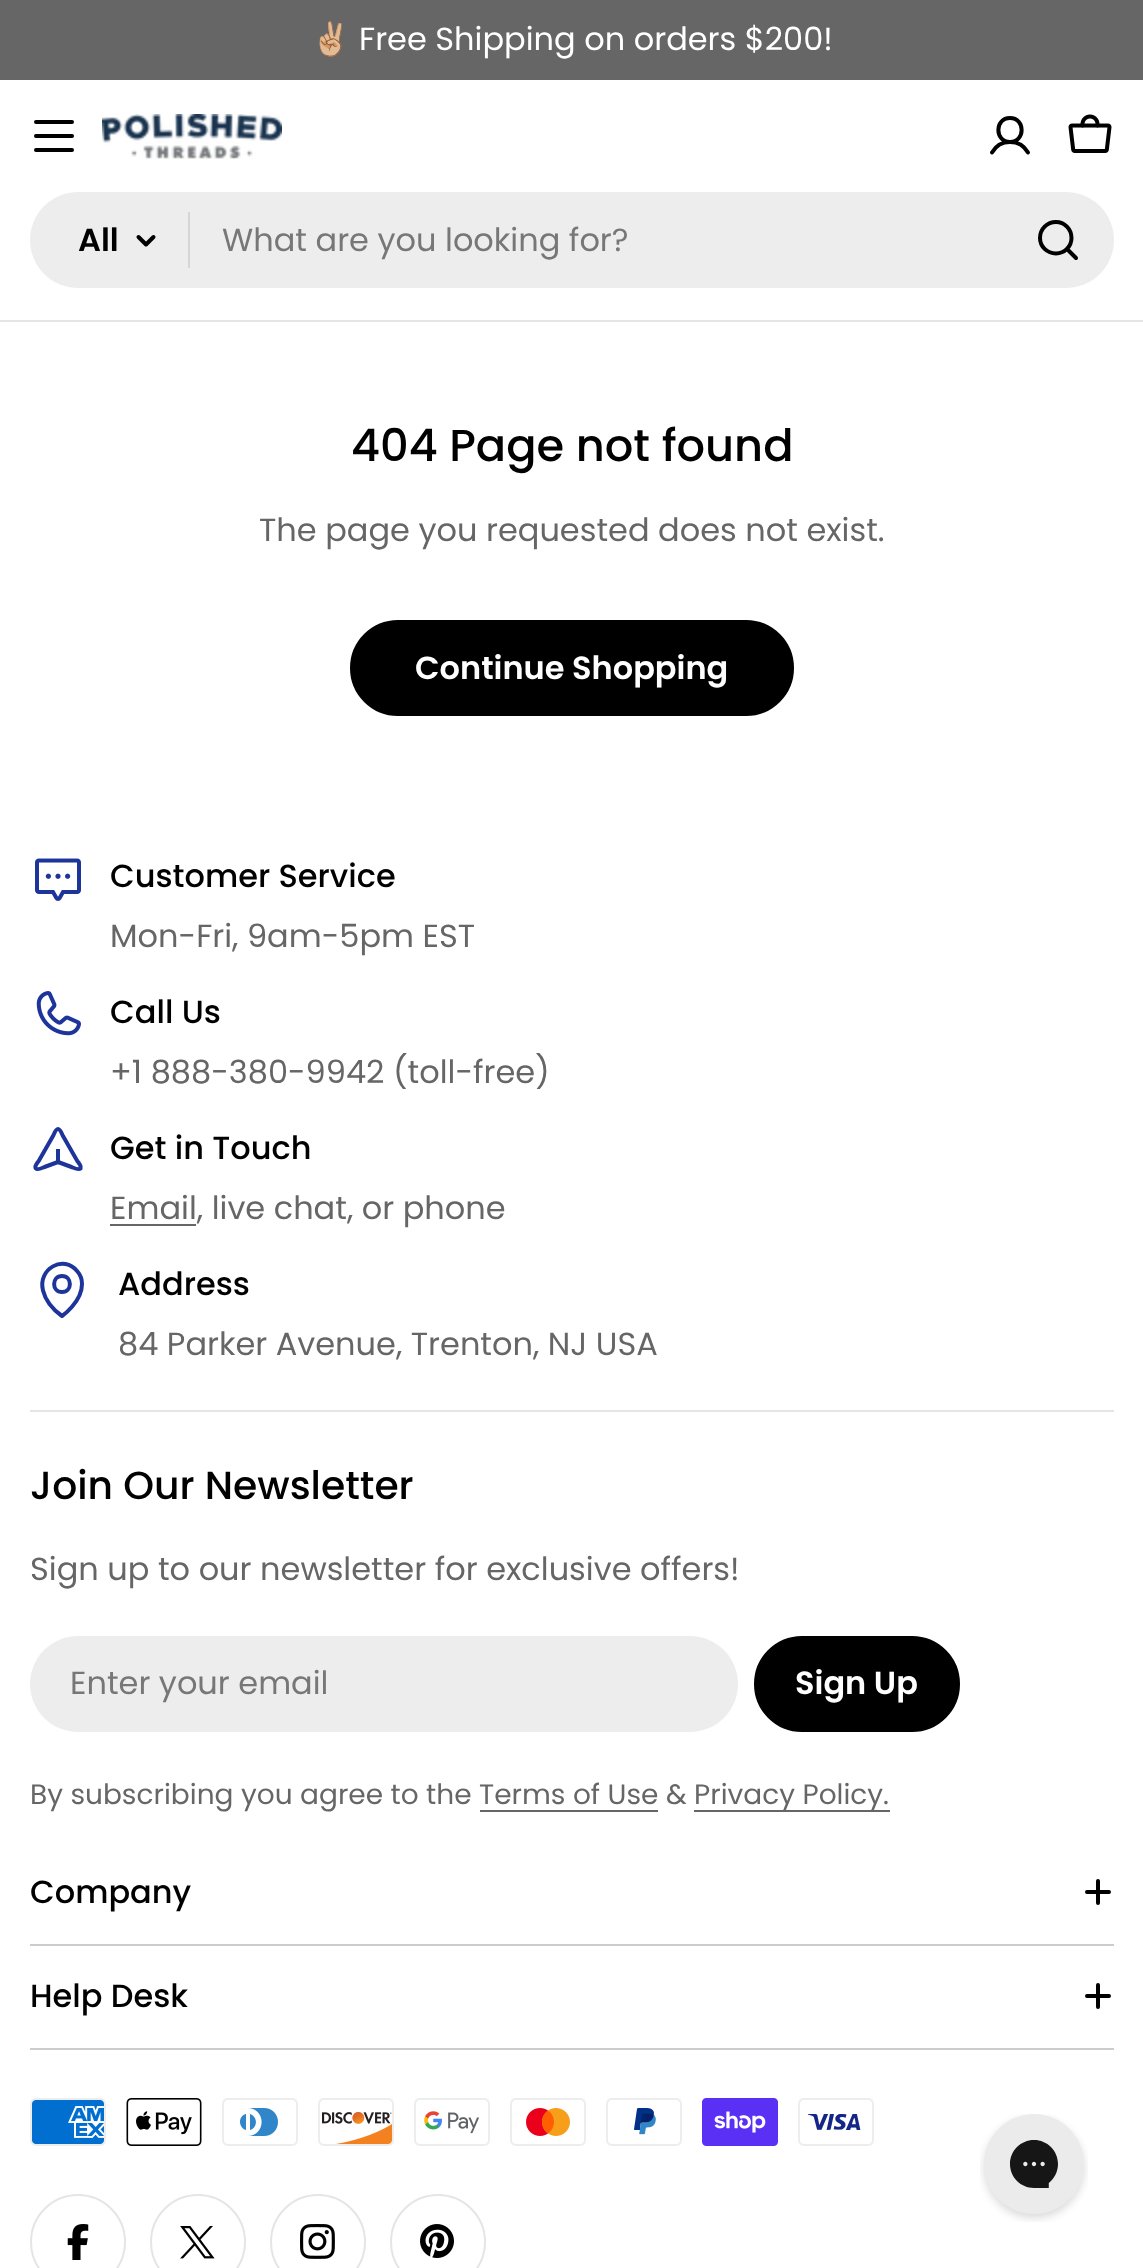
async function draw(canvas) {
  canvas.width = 1143
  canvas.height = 2268
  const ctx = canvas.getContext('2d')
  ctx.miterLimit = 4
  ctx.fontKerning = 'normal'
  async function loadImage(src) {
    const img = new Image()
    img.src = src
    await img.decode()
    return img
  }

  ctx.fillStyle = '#fff'
  ctx.fillRect(0, 0, 1143, 2268)
  ctx.fillStyle = '#666'
  ctx.fillRect(0, 0, 1143, 80)
  ctx.font = '32px Noto Color Emoji'
  ctx.fillStyle = '#fff'
  ctx.fillText('✌🏼', 311, 50)
  ctx.font = '32px Poppins'
  ctx.fillText('Free Shipping on orders $200!', 359, 50)
  ctx.fillStyle = '#e5e5e5'
  ctx.fillRect(0, 320, 1143, 2)
  ctx.fillStyle = '#000'
  ctx.beginPath()
  ctx.roundRect(34, 134, 40, 4, 2)
  ctx.fill()
  ctx.beginPath()
  ctx.roundRect(34, 120, 40, 4, 2)
  ctx.fill()
  ctx.beginPath()
  ctx.roundRect(34, 148, 40, 4, 2)
  ctx.fill()
  ctx.drawImage(await loadImage('image0.png'), 102, 114, 180, 45)
  ctx.beginPath()
  ctx.moveTo(1010, 142)
  ctx.bezierCurveTo(1025.5, 142, 1025.5, 118, 1010, 118)
  ctx.bezierCurveTo(994.5, 118, 994.5, 142, 1010, 142)
  ctx.closePath()
  ctx.moveTo(992, 152.5)
  ctx.bezierCurveTo(1000, 138.5, 1020, 138.5, 1028, 152.5)
  ctx.strokeStyle = '#000'
  ctx.lineWidth = 4
  ctx.lineCap = 'round'
  ctx.lineJoin = 'round'
  ctx.stroke()
  ctx.drawImage(await loadImage('image1.png'), 1068, 114, 44, 39)
  ctx.fillStyle = '#ededed'
  ctx.beginPath()
  ctx.roundRect(30, 192, 1084, 96, 48)
  ctx.fill()
  ctx.font = '600 32px Poppins'
  ctx.fillStyle = '#000'
  ctx.fillText('All', 78, 251)
  ctx.beginPath()
  ctx.moveTo(153.5, 237)
  ctx.lineTo(146, 244.5)
  ctx.lineTo(138.5, 237)
  ctx.stroke()
  ctx.fillStyle = '#d5d5d5'
  ctx.fillRect(188, 212, 2, 56)
  ctx.font = '32px Poppins'
  ctx.fillStyle = '#777'
  ctx.fillText('What are you looking for?', 222, 251)
  ctx.beginPath()
  ctx.moveTo(1056, 253.5)
  ctx.bezierCurveTo(1064.5, 253.5, 1071.5, 246.5, 1071.5, 238)
  ctx.bezierCurveTo(1071.5, 229, 1064.5, 222, 1056, 222)
  ctx.bezierCurveTo(1047, 222, 1040, 229, 1040, 238)
  ctx.bezierCurveTo(1040, 246.5, 1047, 253.5, 1056, 253.5)
  ctx.closePath()
  ctx.moveTo(1067, 249)
  ctx.lineTo(1076, 258)
  ctx.stroke()
  ctx.font = '500 44.75px Poppins'
  ctx.fillStyle = '#000'
  ctx.fillText('404 Page not found', 351, 461)
  ctx.font = '32px Poppins'
  ctx.fillStyle = '#666'
  ctx.fillText('The page you requested does not exist.', 259, 541)
  ctx.fillStyle = '#000'
  ctx.beginPath()
  ctx.roundRect(351, 621, 442, 94, 47)
  ctx.fill()
  ctx.lineWidth = 2
  ctx.lineJoin = 'miter'
  ctx.stroke()
  ctx.font = '600 32px Poppins'
  ctx.fillStyle = '#fff'
  ctx.fillText('Continue Shopping', 415, 679)
  ctx.drawImage(await loadImage('image2.png'), 35, 858, 46, 43)
  ctx.font = '500 32px Poppins'
  ctx.fillStyle = '#000'
  ctx.fillText('Customer Service', 110, 887)
  ctx.font = '32px Poppins'
  ctx.fillStyle = '#666'
  ctx.fillText('Mon-Fri, 9am-5pm EST', 110, 947)
  ctx.drawImage(await loadImage('image3.png'), 36, 991, 45, 45)
  ctx.font = '500 32px Poppins'
  ctx.fillStyle = '#000'
  ctx.fillText('Call Us', 110, 1023)
  ctx.font = '32px Poppins'
  ctx.fillStyle = '#666'
  ctx.fillText('+1 888-380-9942 (toll-free)', 110, 1083)
  ctx.fillStyle = '#1d349a'
  ctx.fillRect(56, 1149, 4, 14)
  ctx.beginPath()
  ctx.moveTo(58, 1162)
  ctx.lineTo(71.5, 1167)
  ctx.bezierCurveTo(73, 1167.5, 78.5, 1170.5, 80.5, 1168.5)
  ctx.lineTo(80.5, 1168)
  ctx.bezierCurveTo(81.5, 1165.5, 78.5, 1163, 77, 1160.5)
  ctx.lineTo(63, 1136)
  ctx.bezierCurveTo(62.5, 1135.5, 60.5, 1129, 58, 1129)
  ctx.bezierCurveTo(55.5, 1129, 53.5, 1135.5, 53, 1136)
  ctx.lineTo(39, 1160.5)
  ctx.bezierCurveTo(37.5, 1163, 34.5, 1165.5, 35.5, 1168)
  ctx.lineTo(36, 1168.5)
  ctx.bezierCurveTo(37.5, 1170.5, 43, 1167.5, 44.5, 1167)
  ctx.closePath()
  ctx.strokeStyle = '#1d349a'
  ctx.lineWidth = 4
  ctx.lineCap = 'butt'
  ctx.stroke()
  ctx.font = '500 32px Poppins'
  ctx.fillStyle = '#000'
  ctx.fillText('Get in Touch', 110, 1159)
  ctx.fillStyle = '#666'
  ctx.fillRect(110, 1224, 86, 2)
  ctx.font = '32px Poppins'
  ctx.fillText('Email, live chat, or phone', 110, 1219)
  ctx.beginPath()
  ctx.moveTo(62, 1292)
  ctx.bezierCurveTo(72.5, 1292, 72.5, 1276, 62, 1276)
  ctx.bezierCurveTo(51.5, 1276, 51.5, 1292, 62, 1292)
  ctx.closePath()
  ctx.moveTo(82, 1284)
  ctx.bezierCurveTo(82, 1302, 62, 1316, 62, 1316)
  ctx.bezierCurveTo(53.5, 1310, 45.5, 1300.5, 43, 1290.5)
  ctx.bezierCurveTo(37.5, 1269, 63.5, 1254, 77.5, 1271.5)
  ctx.bezierCurveTo(80.5, 1275, 82, 1279.5, 82, 1284)
  ctx.closePath()
  ctx.lineCap = 'round'
  ctx.lineJoin = 'round'
  ctx.stroke()
  ctx.font = '500 32px Poppins'
  ctx.fillStyle = '#000'
  ctx.fillText('Address', 118, 1295)
  ctx.font = '32px Poppins'
  ctx.fillStyle = '#666'
  ctx.fillText('84 Parker Avenue, Trenton, NJ USA', 118, 1355)
  ctx.fillStyle = '#e5e5e5'
  ctx.fillRect(30, 1410, 1084, 2)
  ctx.font = '500 39.25px Poppins'
  ctx.fillStyle = '#000'
  ctx.fillText('Join Our Newsletter', 30, 1499)
  ctx.font = '32px Poppins'
  ctx.fillStyle = '#666'
  ctx.fillText('Sign up to our newsletter for exclusive offers!', 30, 1580)
  ctx.fillStyle = '#ededed'
  ctx.beginPath()
  ctx.roundRect(30, 1636, 708, 96, 48)
  ctx.fill()
  ctx.fillStyle = '#777'
  ctx.fillText('Enter your email', 70, 1694)
  ctx.fillStyle = '#000'
  ctx.beginPath()
  ctx.roundRect(755, 1637, 204, 94, 47)
  ctx.fill()
  ctx.strokeStyle = '#000'
  ctx.lineWidth = 2
  ctx.lineJoin = 'miter'
  ctx.stroke()
  ctx.font = '600 32px Poppins'
  ctx.fillStyle = '#fff'
  ctx.fillText('Sign Up', 795, 1694)
  ctx.font = '28px Poppins'
  ctx.fillStyle = '#666'
  ctx.fillText('By subscribing you agree to the Terms of Use &', 30, 1804)
  ctx.fillRect(694, 1810, 196, 2)
  ctx.fillText('Privacy Policy.', 694, 1804)
  ctx.fillRect(480, 1810, 178, 2)
  ctx.fillStyle = '#ccc'
  ctx.fillRect(30, 1944, 1084, 2)
  ctx.font = '500 32px Poppins'
  ctx.fillStyle = '#000'
  ctx.fillText('Company', 30, 1903)
  ctx.beginPath()
  ctx.moveTo(1087, 1892)
  ctx.lineTo(1109, 1892)
  ctx.moveTo(1098, 1881)
  ctx.lineTo(1098, 1903)
  ctx.lineWidth = 4
  ctx.lineJoin = 'round'
  ctx.stroke()
  ctx.fillStyle = '#ccc'
  ctx.fillRect(30, 2048, 1084, 2)
  ctx.fillStyle = '#000'
  ctx.fillText('Help Desk', 30, 2007)
  ctx.beginPath()
  ctx.moveTo(1087, 1996)
  ctx.lineTo(1109, 1996)
  ctx.moveTo(1098, 1985)
  ctx.lineTo(1098, 2007)
  ctx.stroke()
  ctx.drawImage(await loadImage('image4.png'), 30, 2098, 76, 48)
  ctx.drawImage(await loadImage('image5.png'), 126, 2098, 76, 48)
  ctx.drawImage(await loadImage('image6.png'), 222, 2098, 76, 48)
  ctx.drawImage(await loadImage('image7.png'), 318, 2098, 76, 48)
  ctx.drawImage(await loadImage('image8.png'), 414, 2098, 76, 48)
  ctx.drawImage(await loadImage('image9.png'), 510, 2098, 76, 48)
  ctx.drawImage(await loadImage('image10.png'), 606, 2098, 76, 48)
  ctx.drawImage(await loadImage('image11.png'), 702, 2098, 76, 48)
  ctx.drawImage(await loadImage('image12.png'), 798, 2098, 76, 48)
  ctx.beginPath()
  ctx.arc(78, 2242, 47, 0, 2 * Math.PI)
  ctx.strokeStyle = '#e5e5e5'
  ctx.lineWidth = 2
  ctx.stroke()
  ctx.drawImage(await loadImage('image13.png'), 67, 2224, 22, 36)
  ctx.beginPath()
  ctx.arc(198, 2242, 47, 0, 2 * Math.PI)
  ctx.stroke()
  ctx.drawImage(await loadImage('image14.png'), 180, 2226, 35, 33)
  ctx.beginPath()
  ctx.arc(318, 2242, 47, 0, 2 * Math.PI)
  ctx.stroke()
  ctx.drawImage(await loadImage('image15.png'), 300, 2224, 35, 35)
  ctx.beginPath()
  ctx.arc(438, 2242, 47, 0, 2 * Math.PI)
  ctx.stroke()
  ctx.drawImage(await loadImage('image16.png'), 420, 2224, 34, 34)
  ctx.drawImage(await loadImage('image17.png'), 980, 2114, 108, 108)
}

draw(document.querySelector('canvas'))
